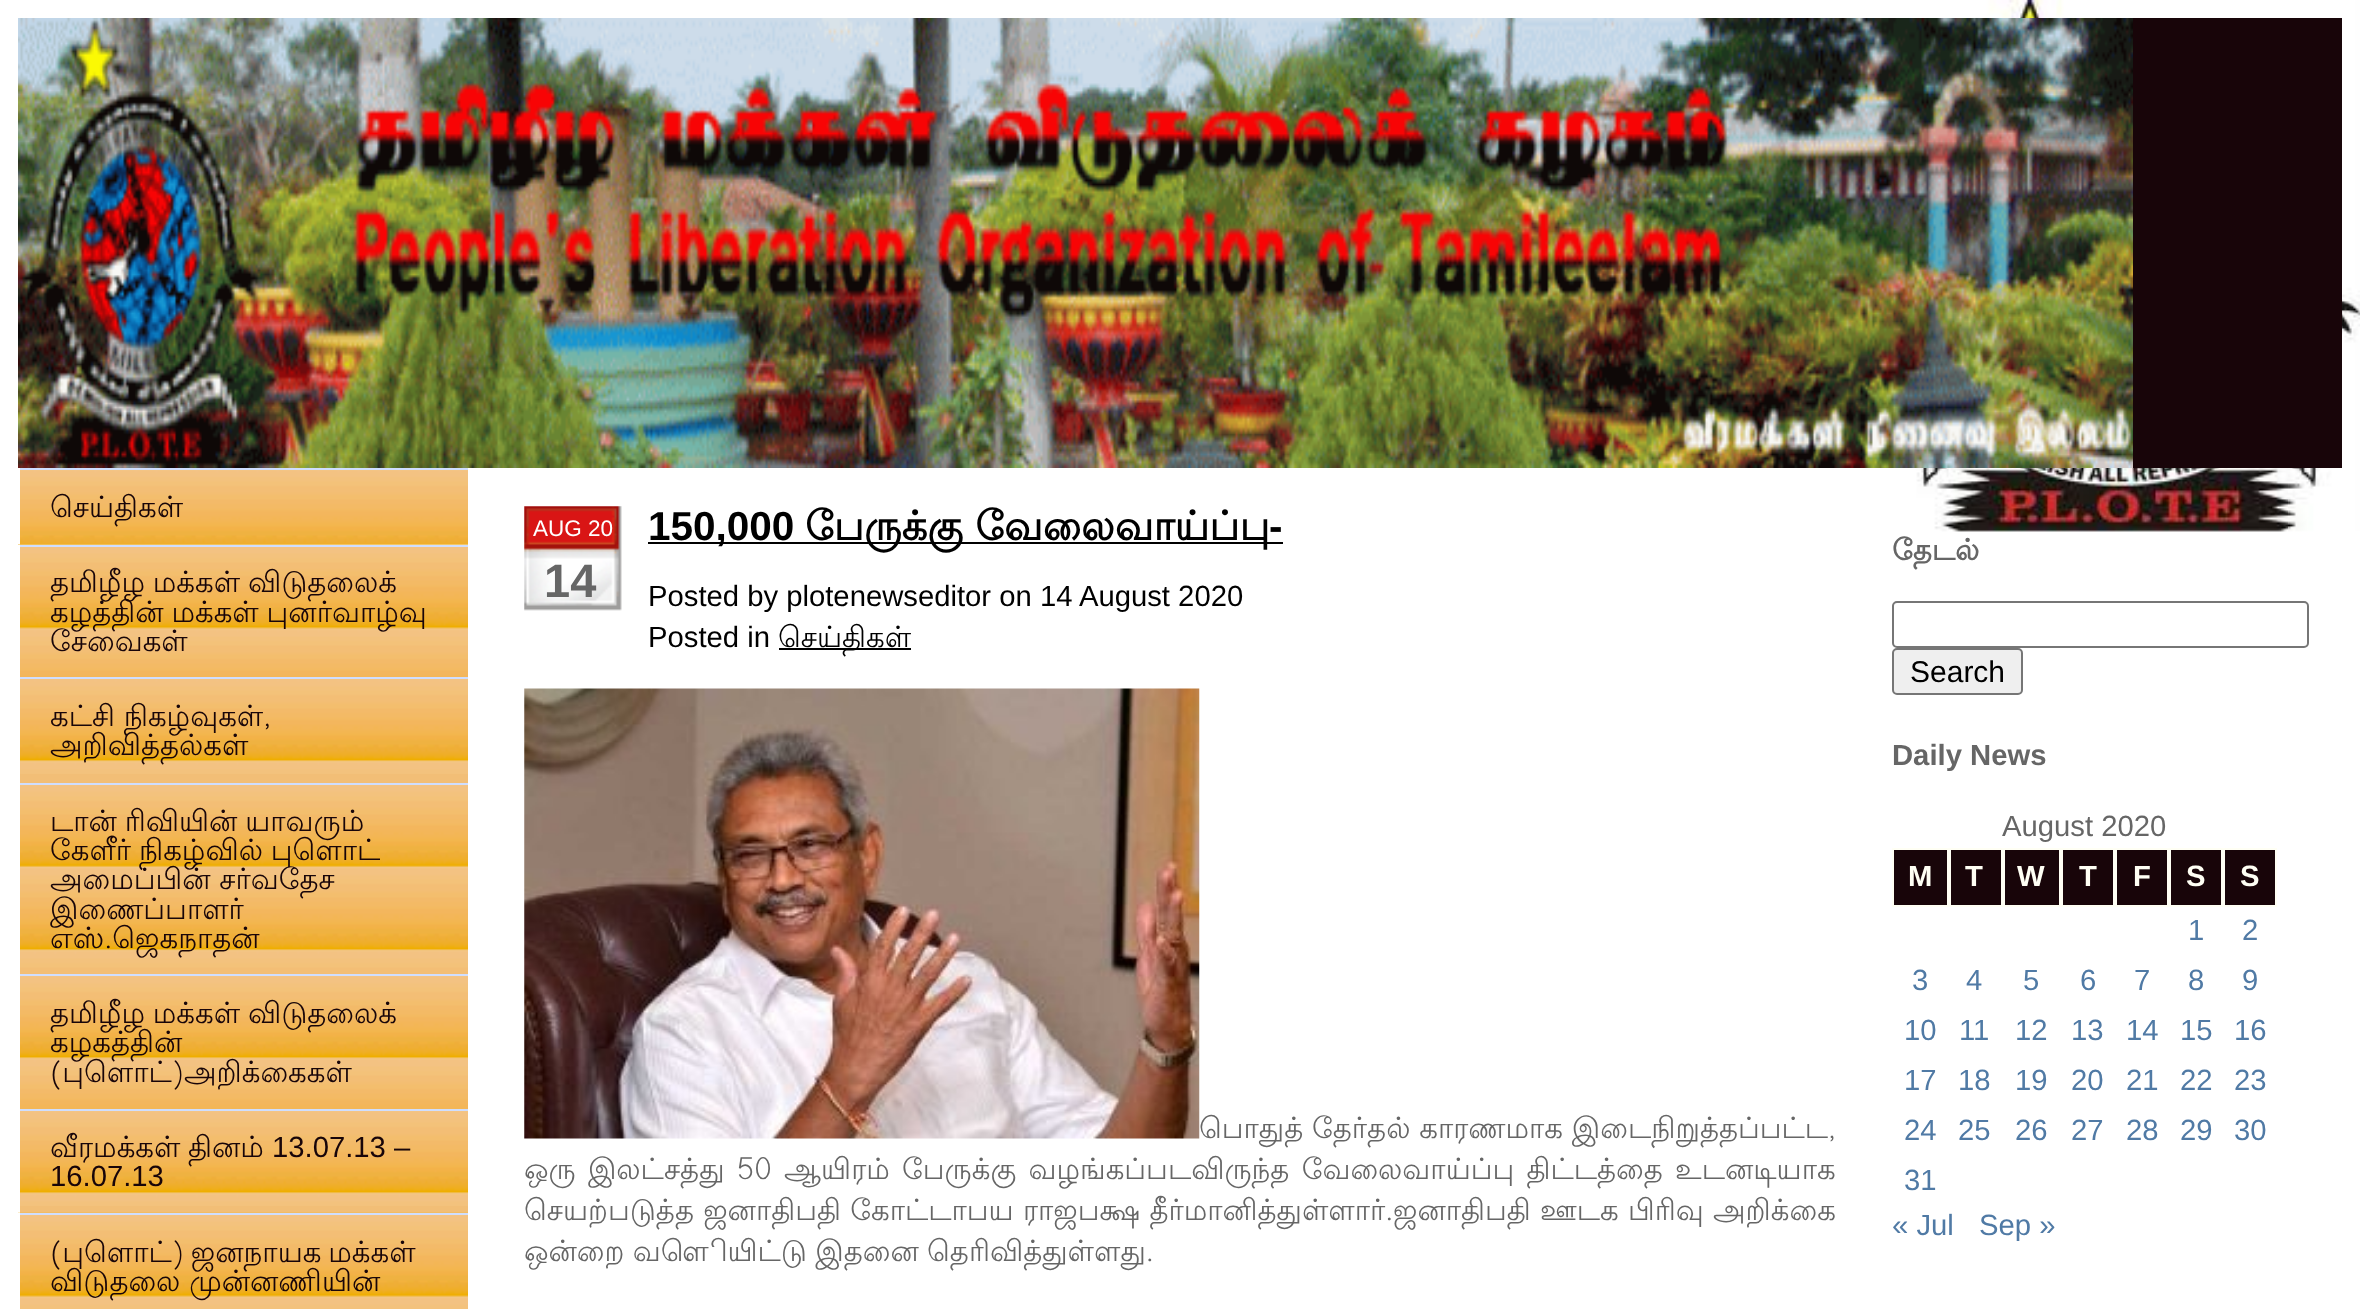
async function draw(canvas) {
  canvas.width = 2360
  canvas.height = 1309
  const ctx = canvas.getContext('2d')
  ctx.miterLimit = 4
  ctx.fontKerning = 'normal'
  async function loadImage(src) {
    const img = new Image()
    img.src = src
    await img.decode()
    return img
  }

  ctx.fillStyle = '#fff'
  ctx.fillRect(0, 0, 2360, 1309)
  ctx.drawImage(await loadImage('image0.png'), 1880, 0, 480, 532)
  ctx.fillStyle = '#180509'
  ctx.fillRect(2133, 18, 209, 450)
  ctx.drawImage(await loadImage('image1.png'), 18, 18, 2115, 450)
  ctx.drawImage(await loadImage('image2.png'), 20, 544, 410, 1)
  ctx.drawImage(await loadImage('image3.png'), 20, 470, 448, 75)
  ctx.fillStyle = '#cfdeff'
  ctx.fillRect(18, 468, 450, 2)
  ctx.fillStyle = '#fff'
  ctx.fillRect(18, 468, 2, 2)
  ctx.font = '29.25px Lohit Tamil'
  ctx.fillStyle = '#180509'
  ctx.fillText('செய்திகள்', 50, 517)
  ctx.drawImage(await loadImage('image4.png'), 18, 544, 450, 133)
  ctx.fillStyle = '#cfdeff'
  ctx.fillRect(18, 545, 450, 2)
  ctx.fillStyle = '#fff'
  ctx.fillRect(18, 545, 2, 132)
  ctx.wordSpacing = '-1px'
  ctx.fillStyle = '#180509'
  ctx.fillText('தமிழீழ மக்கள் விடுதலைக்', 50, 592)
  ctx.fillText('கழத்தின் மக்கள் புனர்வாழ்வு', 50, 622)
  ctx.wordSpacing = '0px'
  ctx.fillText('சேவைகள்', 50, 651)
  ctx.fillStyle = '#f2be76'
  ctx.fillRect(20, 774, 448, 9)
  ctx.drawImage(await loadImage('image5.png'), 20, 679, 448, 95)
  ctx.fillStyle = '#cfdeff'
  ctx.fillRect(18, 677, 450, 2)
  ctx.fillStyle = '#fff'
  ctx.fillRect(18, 677, 2, 2)
  ctx.fillStyle = '#180509'
  ctx.fillText('கட்சி நிகழ்வுகள்,', 50, 726)
  ctx.fillText('அறிவித்தல்கள்', 50, 755)
  ctx.drawImage(await loadImage('image6.png'), 20, 785, 448, 189)
  ctx.fillStyle = '#cfdeff'
  ctx.fillRect(18, 783, 450, 2)
  ctx.fillStyle = '#fff'
  ctx.fillRect(18, 783, 2, 2)
  ctx.wordSpacing = '-1px'
  ctx.fillStyle = '#180509'
  ctx.fillText('டான் ரிவியின் யாவரும்', 50, 831)
  ctx.fillText('கேளீர் நிகழ்வில் புளொட்', 50, 860)
  ctx.wordSpacing = '0px'
  ctx.fillText('அமைப்பின் சர்வதேச', 50, 889)
  ctx.fillText('இணைப்பாளர்', 50, 919)
  ctx.fillText('எஸ்.ஜெகநாதன்', 50, 948)
  ctx.drawImage(await loadImage('image7.png'), 20, 976, 448, 133)
  ctx.fillStyle = '#cfdeff'
  ctx.fillRect(18, 974, 450, 2)
  ctx.fillStyle = '#fff'
  ctx.fillRect(18, 974, 2, 2)
  ctx.wordSpacing = '-1px'
  ctx.fillStyle = '#180509'
  ctx.fillText('தமிழீழ மக்கள் விடுதலைக்', 50, 1023)
  ctx.wordSpacing = '0px'
  ctx.fillText('கழகத்தின்', 50, 1052)
  ctx.fillText('(புளொட்)அறிக்கைகள்', 50, 1082)
  ctx.fillStyle = '#f2be76'
  ctx.fillRect(20, 1206, 448, 7)
  ctx.drawImage(await loadImage('image5.png'), 20, 1111, 448, 95)
  ctx.fillStyle = '#cfdeff'
  ctx.fillRect(18, 1109, 450, 2)
  ctx.fillStyle = '#fff'
  ctx.fillRect(18, 1109, 2, 2)
  ctx.fillStyle = '#180509'
  ctx.fillText('வீரமக்கள்', 50, 1157)
  ctx.fillText('தினம்', 188, 1157)
  ctx.font = '29.25px Liberation Sans'
  ctx.fillText('13.07.13 –', 272, 1157)
  ctx.fillText('16.07.13', 50, 1186)
  ctx.drawImage(await loadImage('image8.png'), 18, 1212, 450, 97)
  ctx.fillStyle = '#cfdeff'
  ctx.fillRect(18, 1213, 450, 2)
  ctx.fillStyle = '#fff'
  ctx.fillRect(18, 1213, 2, 96)
  ctx.wordSpacing = '-2px'
  ctx.font = '29.25px Lohit Tamil'
  ctx.fillStyle = '#180509'
  ctx.fillText('(புளொட்) ஜனநாயக மக்கள்', 50, 1262)
  ctx.wordSpacing = '0px'
  ctx.fillText('விடுதலை முன்னணியின்', 50, 1291)
  ctx.drawImage(await loadImage('image9.png'), 524, 506, 98, 105)
  ctx.font = '22.5px Liberation Sans'
  ctx.fillStyle = '#fff'
  ctx.fillText('AUG 20', 533, 536)
  ctx.font = 'bold 47px Liberation Sans'
  ctx.fillStyle = '#666'
  ctx.fillText('14', 544, 597)
  ctx.fillStyle = '#000'
  ctx.fillRect(648, 542, 635, 2)
  ctx.font = 'bold 40.5px Liberation Sans'
  ctx.fillText('150,000', 648, 540)
  ctx.font = 'bold 40.5px Lohit Tamil'
  ctx.fillText('பேருக்கு வேலைவாய்ப்பு', 805, 540)
  ctx.font = 'bold 40.5px Liberation Sans'
  ctx.fillText('-', 1269, 540)
  ctx.font = '29.25px Liberation Sans'
  ctx.fillText('Posted by plotenewseditor on 14 August 2020', 648, 606)
  ctx.fillText('Posted in', 648, 647)
  ctx.fillRect(779, 648, 132, 2)
  ctx.font = '29.25px Lohit Tamil'
  ctx.fillText('செய்திகள்', 778, 647)
  ctx.drawImage(await loadImage('image10.png'), 524, 688, 676, 451)
  ctx.fillStyle = '#666'
  ctx.fillText('பொதுத் தேர்தல் காரணமாக இடைநிறுத்தப்பட்ட,', 1199, 1138)
  ctx.wordSpacing = '3.5px'
  ctx.fillText('ஒரு இலட்சத்து 50 ஆயிரம் பேருக்கு வழங்கப்படவிருந்த வேலைவாய்ப்பு திட்டத்தை உடனடியாக', 524, 1179)
  ctx.wordSpacing = '0.5px'
  ctx.fillText('செயற்படுத்த ஜனாதிபதி கோட்டாபய ராஜபக்ஷ தீர்மானித்துள்ளார்.', 524, 1220)
  ctx.fillText('ஜனாதிபதி ஊடக பிரிவு அறிக்கை', 1393, 1220)
  ctx.wordSpacing = '-0.5px'
  ctx.fillText('ஒன்றை வௌியிட்டு இதனை தெரிவித்துள்ளது.', 524, 1261)
  ctx.wordSpacing = '0px'
  ctx.font = 'bold 29.25px Lohit Tamil'
  ctx.fillText('தேடல்', 1892, 560)
  ctx.beginPath()
  ctx.roundRect(1893, 602, 415, 45, 4)
  ctx.strokeStyle = '#767676'
  ctx.lineWidth = 2
  ctx.stroke()
  ctx.fillStyle = '#efefef'
  ctx.beginPath()
  ctx.roundRect(1893, 649, 129, 45, 4)
  ctx.fill()
  ctx.stroke()
  ctx.font = '30px Liberation Sans'
  ctx.fillStyle = '#000'
  ctx.fillText('Search', 1910, 682)
  ctx.font = 'bold 29.25px Liberation Sans'
  ctx.fillStyle = '#666'
  ctx.fillText('Daily News', 1892, 765)
  ctx.font = '29.25px Liberation Sans'
  ctx.fillText('August 2020', 2002, 836)
  ctx.fillStyle = '#180509'
  ctx.beginPath()
  ctx.rect(1893, 849, 55, 57)
  ctx.fill()
  ctx.strokeStyle = '#fffff4'
  ctx.stroke()
  ctx.font = 'bold 29.25px Liberation Sans'
  ctx.fillStyle = '#fffff4'
  ctx.fillText('M', 1908, 886)
  ctx.fillStyle = '#180509'
  ctx.beginPath()
  ctx.rect(1950, 849, 52, 57)
  ctx.fill()
  ctx.stroke()
  ctx.fillStyle = '#fffff4'
  ctx.fillText('T', 1965, 886)
  ctx.fillStyle = '#180509'
  ctx.beginPath()
  ctx.rect(2004, 849, 56, 57)
  ctx.fill()
  ctx.stroke()
  ctx.fillStyle = '#fffff4'
  ctx.fillText('W', 2017, 886)
  ctx.fillStyle = '#180509'
  ctx.beginPath()
  ctx.rect(2062, 849, 52, 57)
  ctx.fill()
  ctx.stroke()
  ctx.fillStyle = '#fffff4'
  ctx.fillText('T', 2079, 886)
  ctx.fillStyle = '#180509'
  ctx.beginPath()
  ctx.rect(2116, 849, 52, 57)
  ctx.fill()
  ctx.stroke()
  ctx.fillStyle = '#fffff4'
  ctx.fillText('F', 2133, 886)
  ctx.fillStyle = '#180509'
  ctx.beginPath()
  ctx.rect(2170, 849, 52, 57)
  ctx.fill()
  ctx.stroke()
  ctx.fillStyle = '#fffff4'
  ctx.fillText('S', 2186, 886)
  ctx.fillStyle = '#180509'
  ctx.beginPath()
  ctx.rect(2224, 849, 52, 57)
  ctx.fill()
  ctx.stroke()
  ctx.fillStyle = '#fffff4'
  ctx.fillText('S', 2240, 886)
  ctx.font = '29.25px Liberation Sans'
  ctx.fillStyle = '#507aa5'
  ctx.fillText('1', 2188, 940)
  ctx.fillText('2', 2242, 940)
  ctx.fillText('3', 1912, 990)
  ctx.fillText('4', 1966, 990)
  ctx.fillText('5', 2023, 990)
  ctx.fillText('6', 2080, 990)
  ctx.fillText('7', 2134, 990)
  ctx.fillText('8', 2188, 990)
  ctx.fillText('9', 2242, 990)
  ctx.fillText('10', 1904, 1040)
  ctx.fillText('11', 1959, 1040)
  ctx.fillText('12', 2015, 1040)
  ctx.fillText('13', 2071, 1040)
  ctx.fillText('14', 2126, 1040)
  ctx.fillText('15', 2180, 1040)
  ctx.fillText('16', 2234, 1040)
  ctx.fillText('17', 1904, 1090)
  ctx.fillText('18', 1958, 1090)
  ctx.fillText('19', 2015, 1090)
  ctx.fillText('20', 2071, 1090)
  ctx.fillText('21', 2126, 1090)
  ctx.fillText('22', 2180, 1090)
  ctx.fillText('23', 2234, 1090)
  ctx.fillText('24', 1904, 1140)
  ctx.fillText('25', 1958, 1140)
  ctx.fillText('26', 2015, 1140)
  ctx.fillText('27', 2071, 1140)
  ctx.fillText('28', 2126, 1140)
  ctx.fillText('29', 2180, 1140)
  ctx.fillText('30', 2234, 1140)
  ctx.fillText('31', 1904, 1190)
  ctx.fillText('« Jul', 1892, 1235)
  ctx.fillText('Sep »', 1979, 1235)
}

draw(document.querySelector('canvas'))
